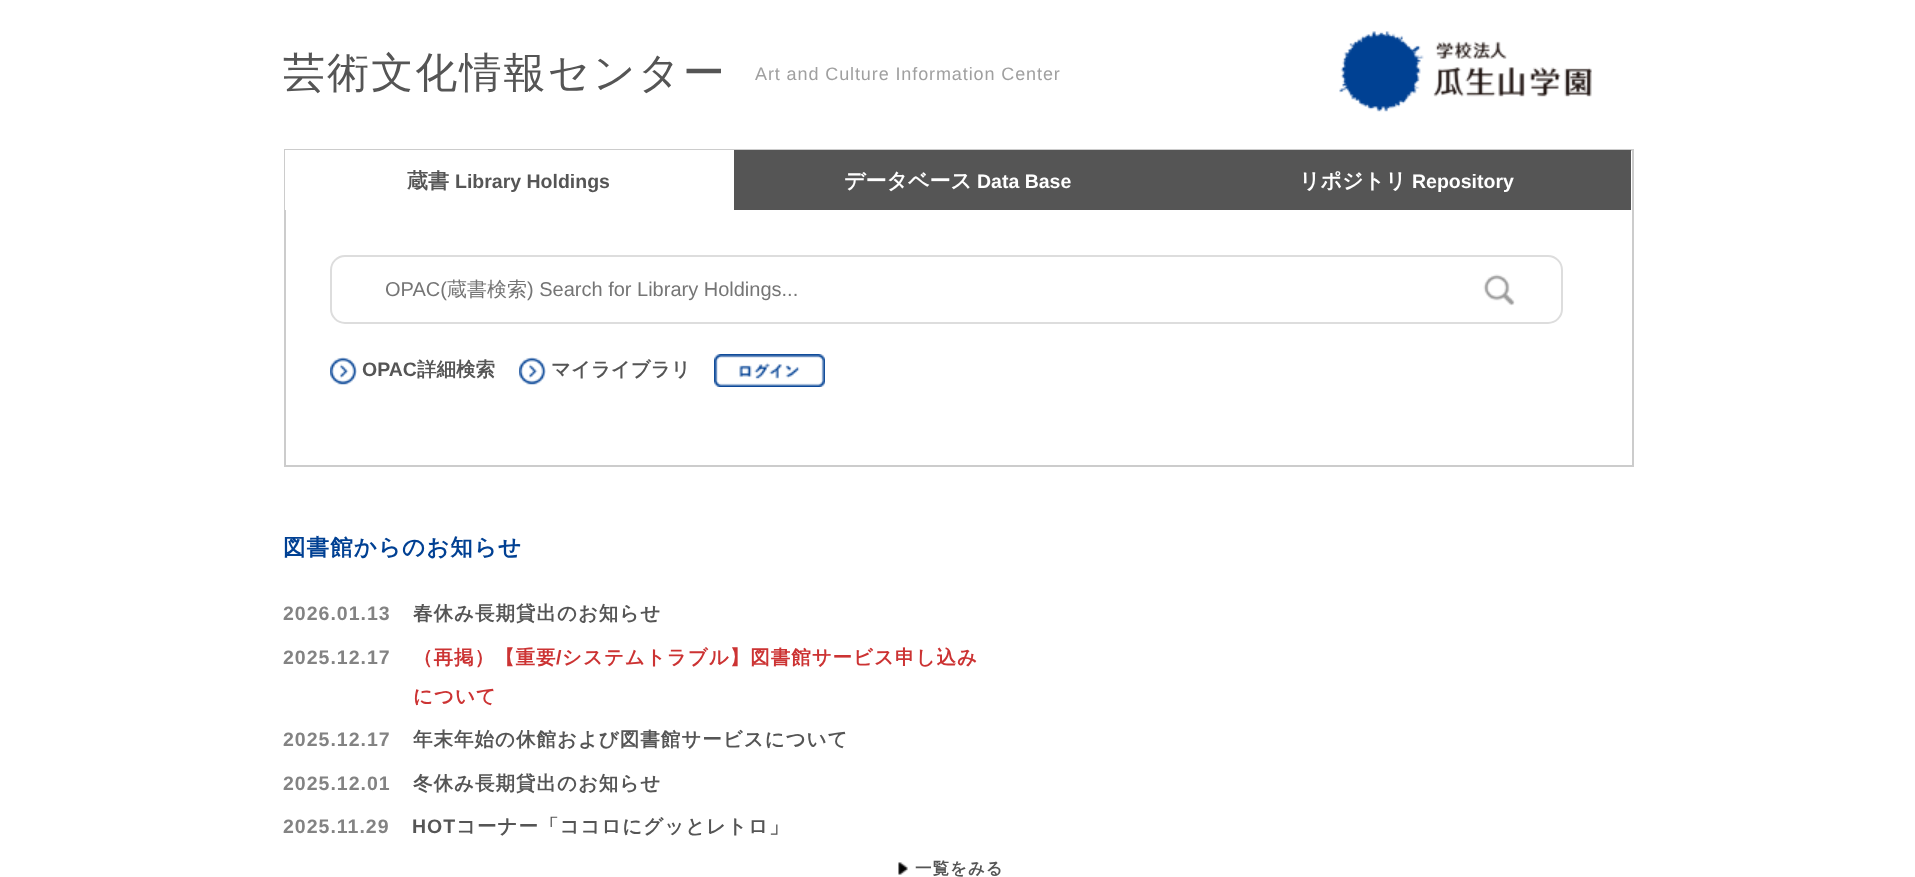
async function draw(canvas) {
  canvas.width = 1915
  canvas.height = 877
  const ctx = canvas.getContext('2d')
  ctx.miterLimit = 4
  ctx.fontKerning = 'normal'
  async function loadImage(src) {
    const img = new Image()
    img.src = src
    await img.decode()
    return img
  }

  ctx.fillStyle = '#fff'
  ctx.fillRect(0, 0, 1915, 877)
  ctx.letterSpacing = '2.1px'
  ctx.font = '500 42px WenQuanYi Zen Hei'
  ctx.fillStyle = '#555'
  ctx.fillText('芸術文化情報センター', 283, 87)
  ctx.letterSpacing = '0.9px'
  ctx.font = '18px Liberation Sans'
  ctx.fillStyle = '#a0a0a0'
  ctx.fillText('Art and Culture Information Center', 755, 80)
  ctx.drawImage(await loadImage('image0.png'), 1339, 31, 253, 81)
  ctx.strokeStyle = '#ccc'
  ctx.lineWidth = 2
  ctx.strokeRect(285, 150, 1348, 316)
  ctx.fillStyle = '#fff'
  ctx.fillRect(285, 150, 449, 60)
  ctx.letterSpacing = '0px'
  ctx.font = 'bold 21px WenQuanYi Zen Hei'
  ctx.fillStyle = '#555'
  ctx.fillText('蔵書', 407, 188)
  ctx.font = 'bold 19.5px Liberation Sans'
  ctx.fillText('Library Holdings', 455, 188)
  ctx.fillRect(734, 150, 897, 60)
  ctx.font = 'bold 21px WenQuanYi Zen Hei'
  ctx.fillStyle = '#fff'
  ctx.fillText('データベース', 844, 188)
  ctx.font = 'bold 19.5px Liberation Sans'
  ctx.fillText('Data Base', 977, 188)
  ctx.font = 'bold 21px WenQuanYi Zen Hei'
  ctx.fillText('リポジトリ', 1299, 188)
  ctx.font = 'bold 19.5px Liberation Sans'
  ctx.fillText('Repository', 1412, 188)
  ctx.beginPath()
  ctx.roundRect(331, 256, 1231, 67, 14)
  ctx.strokeStyle = '#ddd'
  ctx.stroke()
  ctx.save()
  ctx.beginPath()
  ctx.rect(386, 278, 1092, 27)
  ctx.clip()
  ctx.font = '20px Liberation Sans'
  ctx.fillStyle = '#757575'
  ctx.fillText('OPAC(', 385, 296)
  ctx.restore()
  ctx.font = '500 20px WenQuanYi Zen Hei'
  ctx.fillStyle = '#757575'
  ctx.fillText('蔵書検索', 447, 296)
  ctx.font = '20px Liberation Sans'
  ctx.fillText(') Search for Library Holdings...', 527, 296)
  ctx.drawImage(await loadImage('image1.png'), 1483, 274, 32, 32)
  ctx.drawImage(await loadImage('image2.png'), 330, 357, 27, 28)
  ctx.font = 'bold 19.5px Liberation Sans'
  ctx.fillStyle = '#555'
  ctx.fillText('OPAC', 362, 376)
  ctx.font = 'bold 19.5px WenQuanYi Zen Hei'
  ctx.fillText('詳細検索', 417, 376)
  ctx.drawImage(await loadImage('image3.png'), 519, 357, 27, 28)
  ctx.fillText('マイライブラリ', 551, 376)
  ctx.drawImage(await loadImage('image4.png'), 714, 354, 111, 33)
  ctx.letterSpacing = '1.1px'
  ctx.font = 'bold 22.5px WenQuanYi Zen Hei'
  ctx.fillStyle = '#004093'
  ctx.fillText('図書館からのお知らせ', 283, 555)
  ctx.letterSpacing = '1px'
  ctx.font = 'bold 19.5px Liberation Sans'
  ctx.fillStyle = '#838383'
  ctx.fillText('2026.01.13', 283, 620)
  ctx.font = 'bold 19.5px WenQuanYi Zen Hei'
  ctx.fillStyle = '#555'
  ctx.fillText('春休み長期貸出のお知らせ', 413, 620)
  ctx.font = 'bold 19.5px Liberation Sans'
  ctx.fillStyle = '#838383'
  ctx.fillText('2025.12.17', 283, 664)
  ctx.font = 'bold 19.5px WenQuanYi Zen Hei'
  ctx.fillStyle = '#c33'
  ctx.fillText('（再掲）【重要', 413, 664)
  ctx.font = 'bold 19.5px Liberation Sans'
  ctx.fillText('/', 556, 664)
  ctx.font = 'bold 19.5px WenQuanYi Zen Hei'
  ctx.fillText('システムトラブル】図書館サービス申し込み', 562, 664)
  ctx.fillText('について', 413, 703)
  ctx.font = 'bold 19.5px Liberation Sans'
  ctx.fillStyle = '#838383'
  ctx.fillText('2025.12.17', 283, 746)
  ctx.font = 'bold 19.5px WenQuanYi Zen Hei'
  ctx.fillStyle = '#555'
  ctx.fillText('年末年始の休館および図書館サービスについて', 413, 746)
  ctx.font = 'bold 19.5px Liberation Sans'
  ctx.fillStyle = '#838383'
  ctx.fillText('2025.12.01', 283, 790)
  ctx.font = 'bold 19.5px WenQuanYi Zen Hei'
  ctx.fillStyle = '#555'
  ctx.fillText('冬休み長期貸出のお知らせ', 413, 790)
  ctx.font = 'bold 19.5px Liberation Sans'
  ctx.fillStyle = '#838383'
  ctx.fillText('2025.11.29', 283, 833)
  ctx.fillStyle = '#555'
  ctx.fillText('HOT', 412, 833)
  ctx.font = 'bold 19.5px WenQuanYi Zen Hei'
  ctx.fillText('コーナー「ココロにグッとレトロ」', 456, 833)
  ctx.drawImage(await loadImage('image5.png'), 898, 862, 10, 13)
  ctx.font = 'bold 16.5px WenQuanYi Zen Hei'
  ctx.fillText('一覧をみる', 915, 874)
}

draw(document.querySelector('canvas'))
